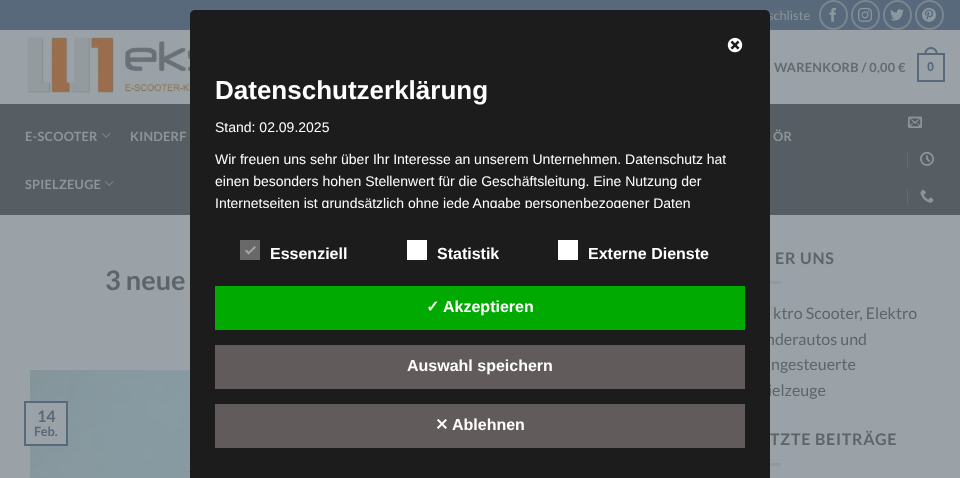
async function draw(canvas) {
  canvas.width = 960
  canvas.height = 478
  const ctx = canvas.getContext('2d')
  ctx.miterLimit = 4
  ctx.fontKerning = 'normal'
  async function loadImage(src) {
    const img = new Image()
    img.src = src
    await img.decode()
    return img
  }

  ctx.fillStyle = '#9ba2a7'
  ctx.fillRect(0, 0, 960, 478)
  ctx.fillStyle = '#57697a'
  ctx.fillRect(0, 0, 960, 30)
  ctx.font = '12.75px Lato'
  ctx.fillStyle = '#8d9599'
  ctx.fillText('schliste', 768, 20)
  ctx.beginPath()
  ctx.roundRect(820, 1, 27, 28, 13.5)
  ctx.strokeStyle = '#798691'
  ctx.lineWidth = 2
  ctx.stroke()
  ctx.drawImage(await loadImage('image0.png'), 829, 7, 7, 15)
  ctx.beginPath()
  ctx.roundRect(852, 1, 27, 28, 13.5)
  ctx.stroke()
  ctx.drawImage(await loadImage('image1.png'), 858, 7, 14, 15)
  ctx.beginPath()
  ctx.roundRect(884, 1, 27, 28, 13.5)
  ctx.stroke()
  ctx.drawImage(await loadImage('image2.png'), 890, 9, 14, 12)
  ctx.beginPath()
  ctx.roundRect(916, 1, 27, 28, 13.5)
  ctx.stroke()
  ctx.drawImage(await loadImage('image3.png'), 922, 7, 14, 15)
  ctx.drawImage(await loadImage('image4.png'), 27, 36, 163, 61)
  ctx.letterSpacing = '0.25px'
  ctx.font = 'bold 12.75px Lato'
  ctx.fillStyle = '#636b6f'
  ctx.fillText('WARENKORB / 0,00 €', 774, 72)
  ctx.strokeStyle = '#57697a'
  ctx.strokeRect(918, 54, 26, 27)
  ctx.fillStyle = '#57697a'
  ctx.beginPath()
  ctx.moveTo(931, 47)
  ctx.bezierCurveTo(935.5, 47, 938, 51, 938, 55)
  ctx.lineTo(924, 55)
  ctx.bezierCurveTo(924, 51, 926.5, 47, 931, 47)
  ctx.closePath()
  ctx.moveTo(931, 49)
  ctx.bezierCurveTo(934.5, 49, 936, 52, 936, 55)
  ctx.lineTo(926, 55)
  ctx.bezierCurveTo(926, 52, 927.5, 49, 931, 49)
  ctx.closePath()
  ctx.fill('evenodd')
  ctx.font = 'bold 12.75px Liberation Sans'
  ctx.fillText('0', 927, 71)
  ctx.fillStyle = '#565e63'
  ctx.fillRect(0, 104, 960, 111)
  ctx.font = 'bold 12.75px Lato'
  ctx.fillStyle = '#8d9599'
  ctx.fillText('E-SCOOTER', 25, 141)
  ctx.drawImage(await loadImage('image5.png'), 101, 132, 10, 6)
  ctx.fillText('KINDERF', 130, 141)
  ctx.fillText('ÖR', 773, 141)
  ctx.fillText('SPIELZEUGE', 25, 189)
  ctx.drawImage(await loadImage('image5.png'), 104, 180, 10, 6)
  ctx.drawImage(await loadImage('image6.png'), 908, 116, 14, 12)
  ctx.fillStyle = '#646c70'
  ctx.fillRect(907, 153, 1, 15)
  ctx.drawImage(await loadImage('image7.png'), 920, 151, 14, 15)
  ctx.fillRect(907, 189, 1, 15)
  ctx.drawImage(await loadImage('image8.png'), 920, 189, 14, 14)
  ctx.letterSpacing = '0px'
  ctx.font = 'bold 27px Lato'
  ctx.fillStyle = '#5d6569'
  ctx.fillText('3 neue', 105, 290)
  ctx.drawImage(await loadImage('image9.png'), 30, 370, 160, 108)
  ctx.fillStyle = '#9ba2a7'
  ctx.fillRect(30, 403, 36, 41)
  ctx.strokeRect(25, 402, 42, 43)
  ctx.font = 'bold 16px Lato'
  ctx.fillStyle = '#57697a'
  ctx.fillText('14', 37, 422)
  ctx.font = 'bold 12.75px Lato'
  ctx.fillText('Feb.', 34, 436)
  ctx.letterSpacing = '0.75px'
  ctx.font = 'bold 16px Lato'
  ctx.fillStyle = '#5d6569'
  ctx.fillText('ER UNS', 775, 264)
  ctx.fillStyle = '#92999e'
  ctx.fillRect(770, 281, 11, 3)
  ctx.letterSpacing = '0px'
  ctx.font = '16px Lato'
  ctx.fillStyle = '#5d6569'
  ctx.fillText('ktro Scooter, Elektro', 773, 319)
  ctx.fillText('nderautos und', 766, 345)
  ctx.fillText('ngesteuerte', 771, 370)
  ctx.fillText('ielzeuge', 768, 396)
  ctx.letterSpacing = '0.75px'
  ctx.font = 'bold 16px Lato'
  ctx.fillText('TZTE BEITRÄGE', 770, 445)
  ctx.fillStyle = '#92999e'
  ctx.fillRect(770, 463, 11, 3)
  ctx.fillStyle = '#1d1c1c'
  ctx.beginPath()
  ctx.roundRect(190, 10, 580, 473, 5)
  ctx.fill()
  ctx.drawImage(await loadImage('image10.png'), 727, 37, 16, 16)
  ctx.letterSpacing = '0px'
  ctx.font = 'bold 26px Liberation Sans'
  ctx.fillStyle = '#fff'
  ctx.fillText('Datenschutzerklärung', 215, 99)
  ctx.font = '14px Liberation Sans'
  ctx.fillText('Stand: 02.09.2025', 215, 132)
  ctx.fillText('Wir freuen uns sehr über Ihr Interesse an unserem Unternehmen. Datenschutz hat', 215, 164)
  ctx.fillText('einen besonders hohen Stellenwert für die Geschäftsleitung. Eine Nutzung der', 215, 186)
  ctx.save()
  ctx.beginPath()
  ctx.rect(215, 65, 540, 143)
  ctx.clip()
  ctx.fillText('Internetseiten ist grundsätzlich ohne jede Angabe personenbezogener Daten', 215, 208)
  ctx.restore()
  ctx.fillStyle = '#696969'
  ctx.fillRect(240, 240, 20, 20)
  ctx.fillStyle = '#a5a4a4'
  ctx.beginPath()
  ctx.moveTo(254.5, 246)
  ctx.lineTo(256, 247.5)
  ctx.lineTo(248.5, 254.5)
  ctx.lineTo(247.5, 253)
  ctx.closePath()
  ctx.fill()
  ctx.beginPath()
  ctx.moveTo(246.5, 249.5)
  ctx.lineTo(250, 253)
  ctx.lineTo(248.5, 254.5)
  ctx.lineTo(245, 251)
  ctx.closePath()
  ctx.fill()
  ctx.font = 'bold 16px Liberation Sans'
  ctx.fillStyle = '#fff'
  ctx.fillText('Essenziell', 270, 259)
  ctx.fillRect(407, 240, 20, 20)
  ctx.fillText('Statistik', 437, 259)
  ctx.fillRect(558, 240, 20, 20)
  ctx.fillText('Externe Dienste', 588, 259)
  ctx.fillStyle = '#0a0'
  ctx.fillRect(215, 286, 530, 44)
  ctx.font = 'bold 16px DejaVu Sans'
  ctx.fillStyle = '#fff'
  ctx.fillText('✓', 426, 312)
  ctx.font = 'bold 16px Liberation Sans'
  ctx.fillText('Akzeptieren', 443, 312)
  ctx.fillStyle = '#615b5b'
  ctx.fillRect(215, 345, 530, 44)
  ctx.fillStyle = '#fff'
  ctx.fillText('Auswahl speichern', 407, 371)
  ctx.fillStyle = '#615b5b'
  ctx.fillRect(215, 404, 530, 44)
  ctx.font = 'bold 16px DejaVu Sans'
  ctx.fillStyle = '#fff'
  ctx.fillText('✕', 435, 430)
  ctx.font = 'bold 16px Liberation Sans'
  ctx.fillText('Ablehnen', 452, 430)
}

draw(document.querySelector('canvas'))
